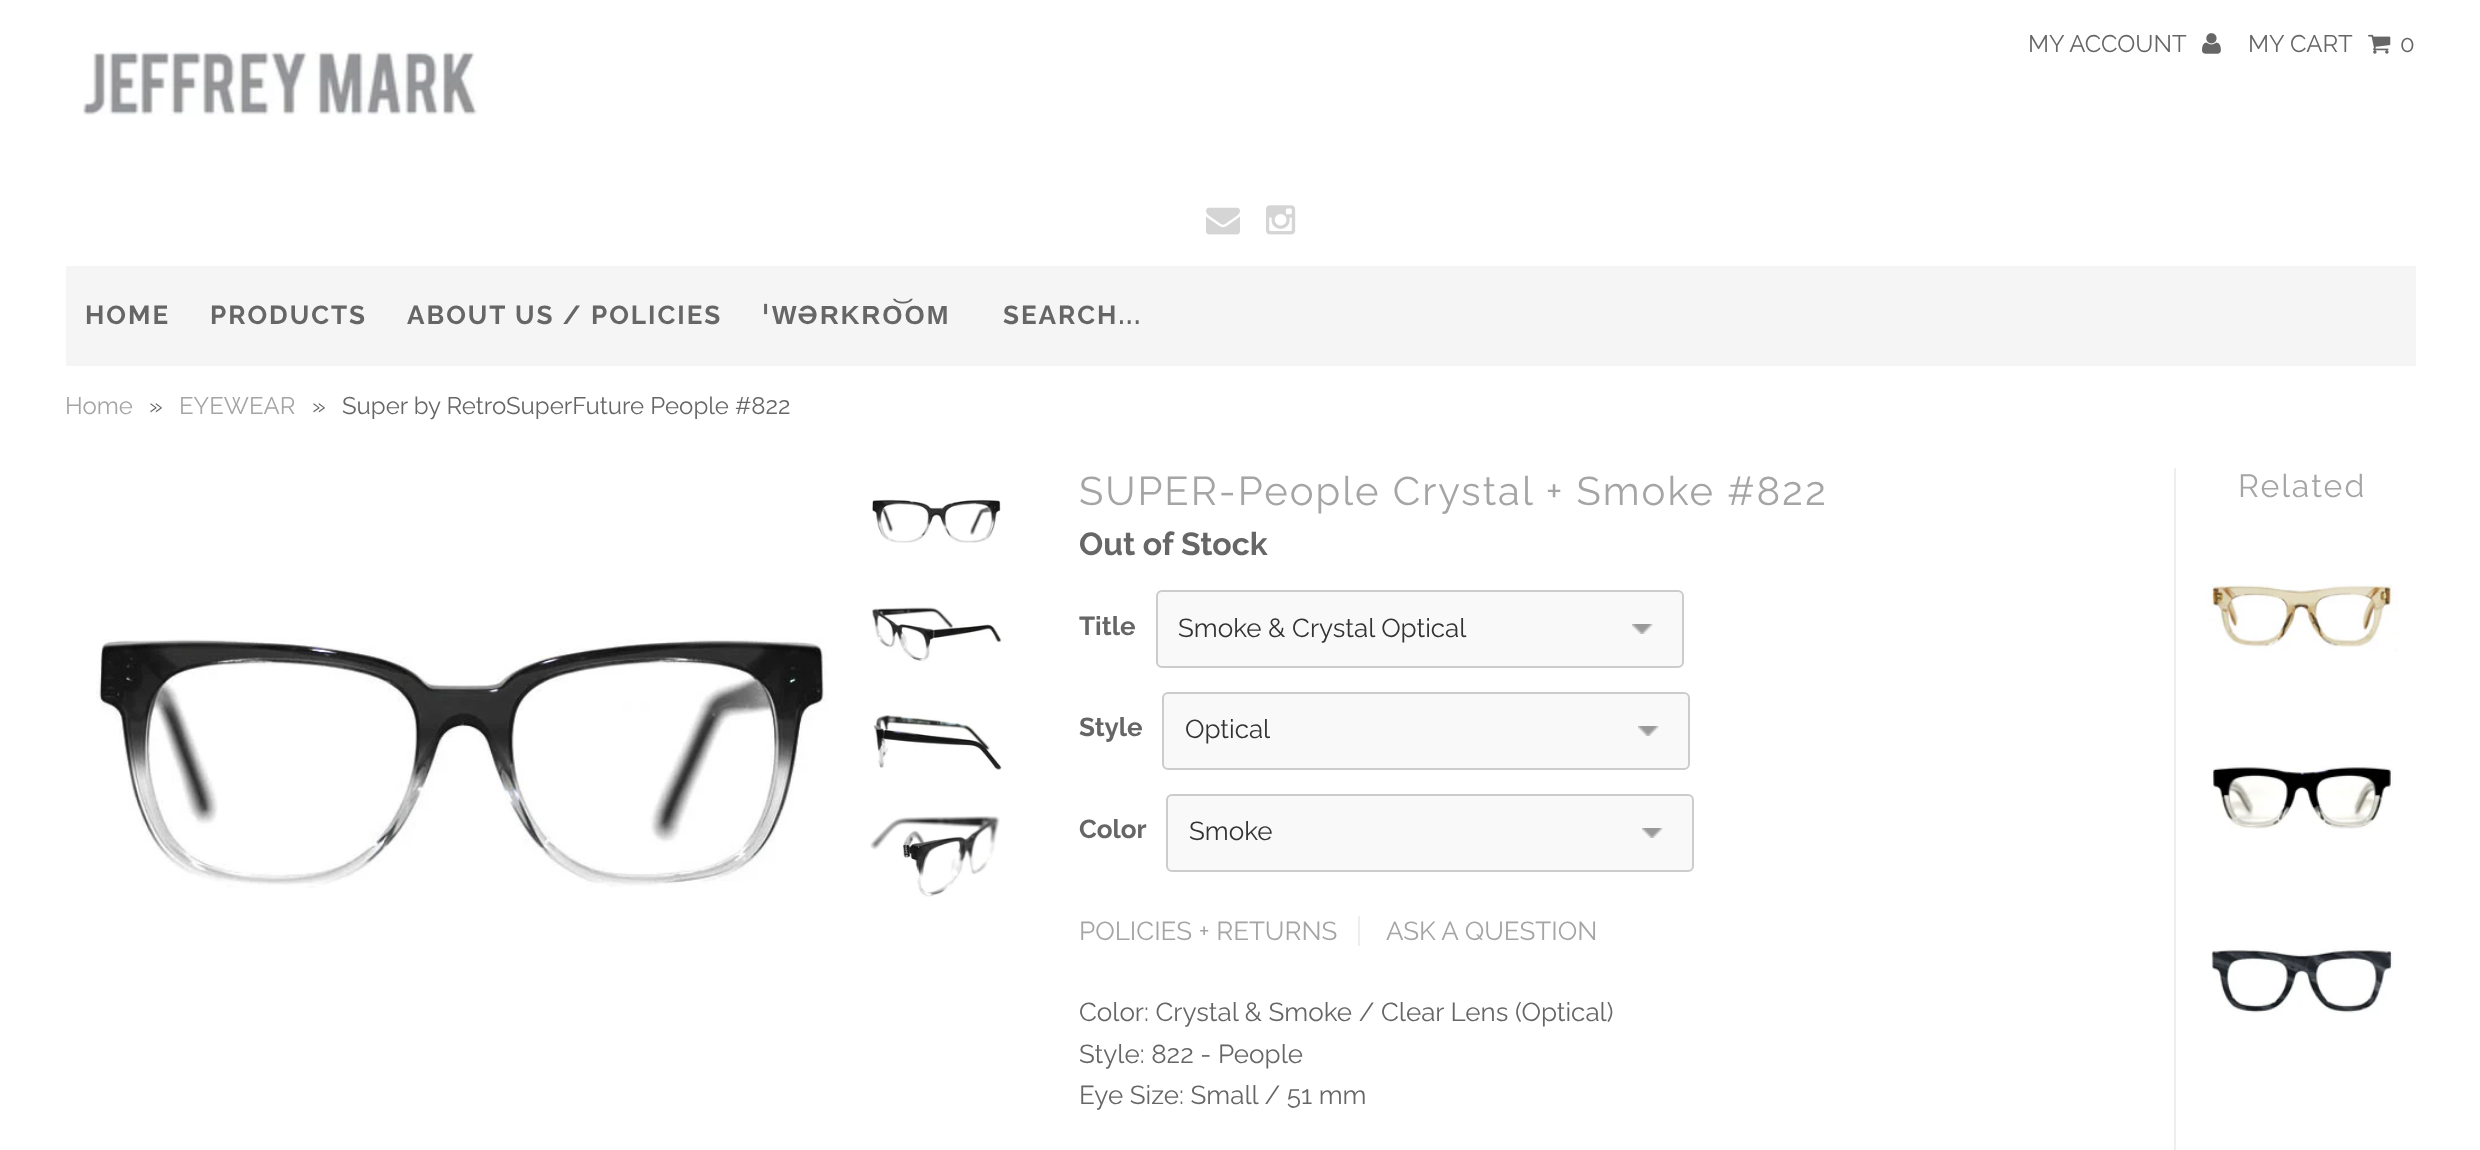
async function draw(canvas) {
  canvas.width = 2480
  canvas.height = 1150
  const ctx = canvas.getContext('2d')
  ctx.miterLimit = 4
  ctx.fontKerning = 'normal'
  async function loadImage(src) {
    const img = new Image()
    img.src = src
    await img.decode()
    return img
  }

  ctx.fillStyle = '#fff'
  ctx.fillRect(0, 0, 2480, 1150)
  ctx.font = '24px Raleway'
  ctx.fillStyle = '#666'
  ctx.fillText('MY ACCOUNT', 2028, 52)
  ctx.drawImage(await loadImage('image0.png'), 2202, 33, 19, 21)
  ctx.fillText('MY CART', 2248, 52)
  ctx.drawImage(await loadImage('image1.png'), 2368, 34, 23, 20)
  ctx.fillText('0', 2400, 52)
  ctx.drawImage(await loadImage('image2.png'), 83, 51, 396, 65)
  ctx.drawImage(await loadImage('image3.png'), 1206, 207, 34, 28)
  ctx.drawImage(await loadImage('image4.png'), 1266, 205, 30, 30)
  ctx.fillStyle = '#f5f5f5'
  ctx.fillRect(66, 266, 2350, 100)
  ctx.letterSpacing = '2px'
  ctx.font = 'bold 26px Raleway'
  ctx.fillStyle = '#666'
  ctx.fillText('HOME', 85, 324)
  ctx.fillText('PRODUCTS', 210, 324)
  ctx.fillText('ABOUT US / POLICIES', 407, 324)
  ctx.fillText('ˈ', 762, 324)
  ctx.font = 'bold 26px Liberation Sans'
  ctx.fillText('W', 772, 324)
  ctx.font = 'bold 26px Raleway'
  ctx.fillText('Ə', 798, 324)
  ctx.font = 'bold 26px Liberation Sans'
  ctx.fillText('RKRO͝OM', 820, 324)
  ctx.font = 'bold 26px Raleway'
  ctx.fillText('SEARCH...', 1003, 324)
  ctx.letterSpacing = '0px'
  ctx.font = '24px Raleway'
  ctx.fillStyle = '#a5a5a5'
  ctx.fillText('Home', 65, 414)
  ctx.fillStyle = '#666'
  ctx.fillText('»', 149, 414)
  ctx.fillStyle = '#a5a5a5'
  ctx.fillText('EYEWEAR', 179, 414)
  ctx.fillStyle = '#666'
  ctx.fillText('»', 312, 414)
  ctx.fillText('Super by RetroSuperFuture People #822', 342, 414)
  ctx.drawImage(await loadImage('image5.png'), 96, 639, 732, 249)
  ctx.drawImage(await loadImage('image6.png'), 872, 499, 129, 44)
  ctx.drawImage(await loadImage('image7.png'), 871, 607, 133, 55)
  ctx.drawImage(await loadImage('image8.png'), 873, 715, 129, 55)
  ctx.drawImage(await loadImage('image9.png'), 870, 816, 130, 81)
  ctx.fillStyle = '#eee'
  ctx.fillRect(2174, 468, 2, 682)
  ctx.letterSpacing = '2px'
  ctx.font = '40px Raleway'
  ctx.fillStyle = '#a5a5a5'
  ctx.fillText('SUPER-People Crystal + Smoke #822', 1079, 505)
  ctx.letterSpacing = '0px'
  ctx.font = 'bold 32px Raleway'
  ctx.fillStyle = '#666'
  ctx.fillText('Out of Stock', 1079, 555)
  ctx.font = 'bold 26px Raleway'
  ctx.fillText('Title', 1079, 635)
  ctx.fillStyle = '#f9f9f9'
  ctx.beginPath()
  ctx.roundRect(1156, 590, 528, 78, 6)
  ctx.fill()
  ctx.drawImage(await loadImage('image10.png'), 1632, 624, 21, 10)
  ctx.beginPath()
  ctx.roundRect(1157, 591, 526, 76, 5)
  ctx.strokeStyle = '#ccc'
  ctx.lineWidth = 2
  ctx.stroke()
  ctx.font = '26px Raleway'
  ctx.fillStyle = '#333'
  ctx.fillText('Smoke & Crystal Optical', 1178, 637)
  ctx.font = 'bold 26px Raleway'
  ctx.fillStyle = '#666'
  ctx.fillText('Style', 1079, 736)
  ctx.fillStyle = '#f9f9f9'
  ctx.beginPath()
  ctx.roundRect(1162, 692, 528, 78, 6)
  ctx.fill()
  ctx.drawImage(await loadImage('image10.png'), 1638, 726, 21, 10)
  ctx.beginPath()
  ctx.roundRect(1163, 693, 526, 76, 5)
  ctx.stroke()
  ctx.font = '26px Raleway'
  ctx.fillStyle = '#333'
  ctx.fillText('Optical', 1185, 738)
  ctx.font = 'bold 26px Raleway'
  ctx.fillStyle = '#666'
  ctx.fillText('Color', 1079, 838)
  ctx.fillStyle = '#f9f9f9'
  ctx.beginPath()
  ctx.roundRect(1166, 794, 528, 78, 6)
  ctx.fill()
  ctx.drawImage(await loadImage('image10.png'), 1642, 828, 21, 10)
  ctx.beginPath()
  ctx.roundRect(1167, 795, 526, 76, 5)
  ctx.stroke()
  ctx.font = '26px Raleway'
  ctx.fillStyle = '#333'
  ctx.fillText('Smoke', 1189, 840)
  ctx.fillStyle = '#a5a5a5'
  ctx.fillText('POLICIES + RETURNS', 1079, 940)
  ctx.fillStyle = '#eee'
  ctx.fillRect(1358, 916, 2, 30)
  ctx.fillStyle = '#a5a5a5'
  ctx.fillText('ASK A QUESTION', 1386, 940)
  ctx.fillStyle = '#666'
  ctx.fillText('Color: Crystal & Smoke / Clear Lens (Optical)', 1079, 1021)
  ctx.fillText('Style: 822 - People', 1079, 1063)
  ctx.fillText('Eye Size: Small / 51 mm', 1079, 1104)
  ctx.letterSpacing = '2px'
  ctx.font = '32px Raleway'
  ctx.fillStyle = '#a5a5a5'
  ctx.fillText('Related', 2238, 497)
  ctx.drawImage(await loadImage('image11.png'), 2206, 584, 192, 68)
  ctx.drawImage(await loadImage('image12.png'), 2211, 765, 182, 64)
  ctx.drawImage(await loadImage('image13.png'), 2211, 948, 183, 65)
}

draw(document.querySelector('canvas'))
